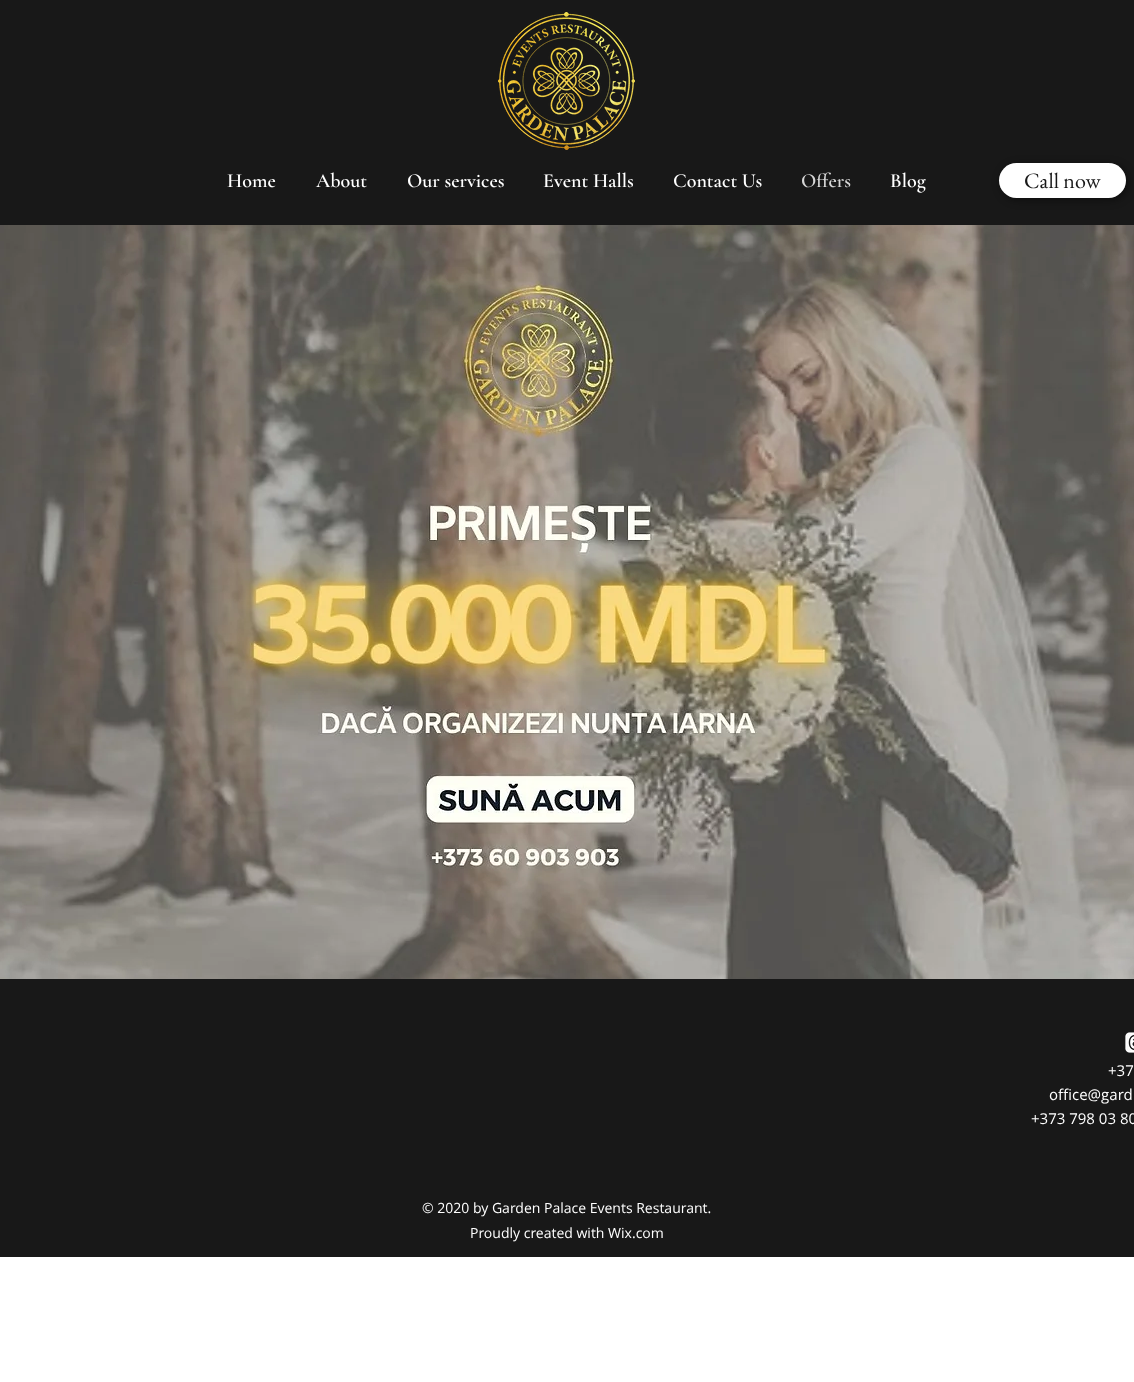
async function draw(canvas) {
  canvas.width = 1134
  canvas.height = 1382
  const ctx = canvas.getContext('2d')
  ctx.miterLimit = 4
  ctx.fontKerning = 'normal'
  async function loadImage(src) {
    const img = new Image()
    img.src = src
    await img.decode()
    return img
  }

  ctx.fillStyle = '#fff'
  ctx.fillRect(0, 0, 1134, 1382)
  ctx.fillStyle = '#181818'
  ctx.fillRect(0, 0, 1134, 225)
  ctx.drawImage(await loadImage('image0.png'), 498, 12, 137, 138)
  ctx.font = '600 20px Cormorant Garamond'
  ctx.fillStyle = '#fff'
  ctx.fillText('Home', 227, 187)
  ctx.fillText('About', 316, 187)
  ctx.fillText('Our services', 407, 187)
  ctx.fillText('Event Halls', 543, 187)
  ctx.fillText('Contact Us', 673, 187)
  ctx.fillStyle = '#d7d7d7'
  ctx.fillText('Offers', 801, 187)
  ctx.fillStyle = '#fff'
  ctx.fillText('Blog', 890, 187)
  ctx.fillStyle = '#00000073'
  ctx.filter = 'blur(4px)'
  ctx.beginPath()
  ctx.roundRect(1001, 165, 127, 35, 17.5)
  ctx.fill()
  ctx.filter = 'none'
  ctx.fillStyle = '#fff'
  ctx.beginPath()
  ctx.roundRect(999, 163, 127, 35, 17.5)
  ctx.fill()
  ctx.font = '22px EB Garamond'
  ctx.fillStyle = '#181818'
  ctx.fillText('Call now', 1024, 188)
  ctx.drawImage(await loadImage('image1.png'), 0, 225, 1134, 754)
  ctx.fillRect(0, 979, 1134, 278)
  ctx.drawImage(await loadImage('image2.png'), 1125, 1032, 9, 21)
  ctx.font = '15px Open Sans'
  ctx.fillStyle = '#fff'
  ctx.fillText('+37', 1108, 1076)
  ctx.fillText('office@gard', 1049, 1100)
  ctx.fillText('+373 798 03 80', 1031, 1124)
  ctx.font = '14px Open Sans'
  ctx.fillText('© 2020 by Garden Palace Events Restaurant.', 422, 1213)
  ctx.fillText('Proudly created with Wix.com', 470, 1238)
}

draw(document.querySelector('canvas'))
